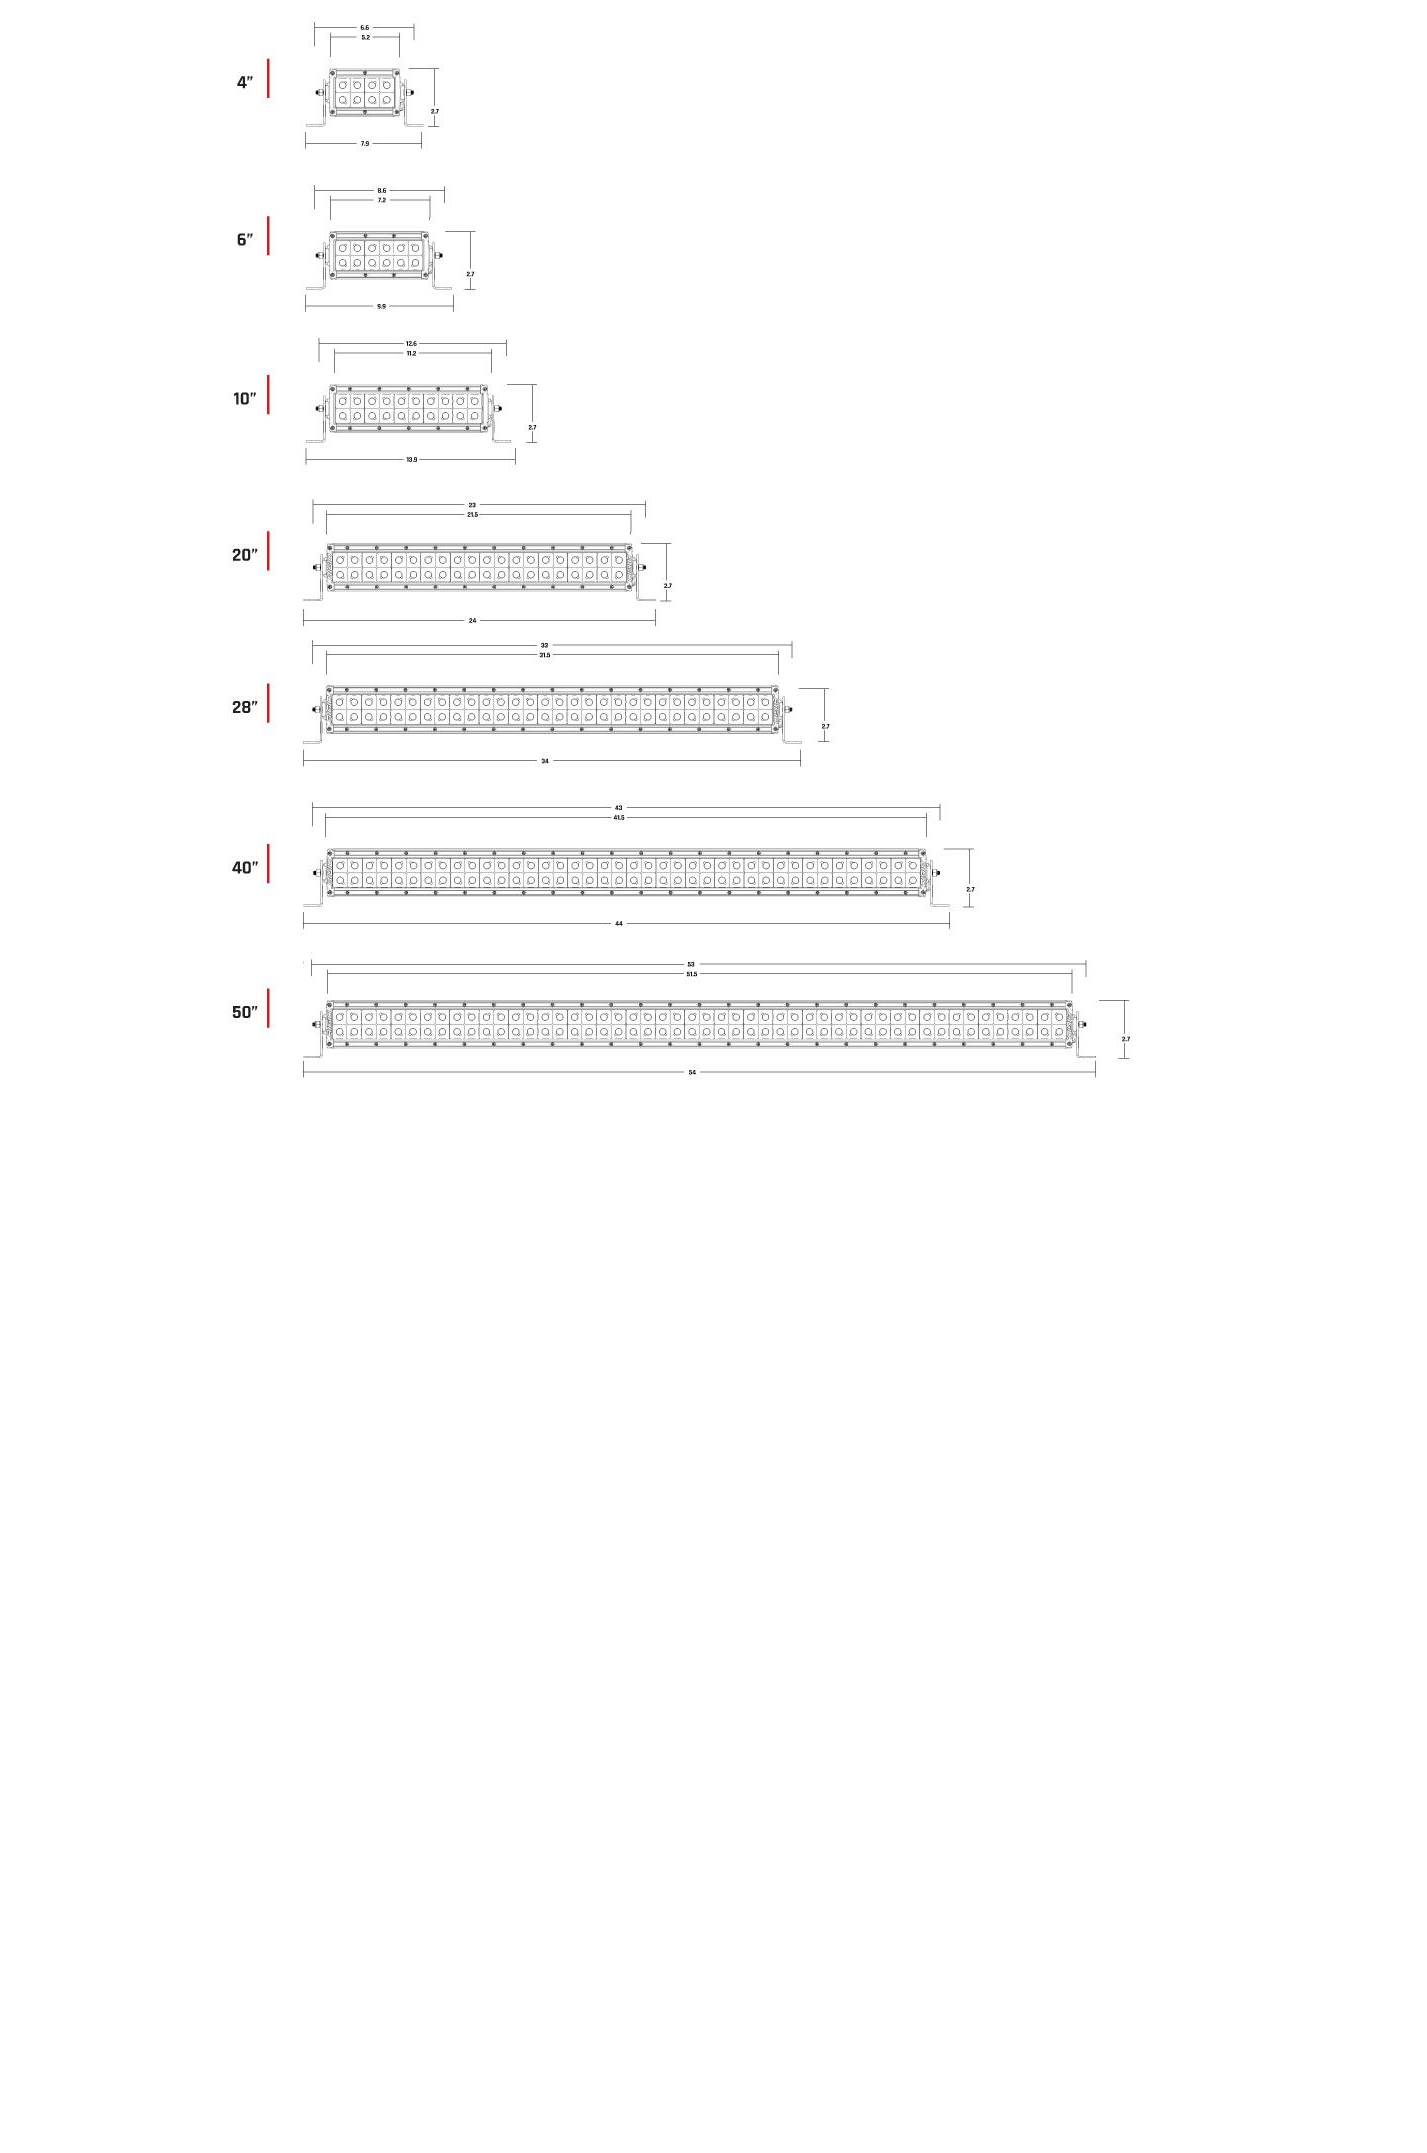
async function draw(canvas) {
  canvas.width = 1427
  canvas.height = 2153
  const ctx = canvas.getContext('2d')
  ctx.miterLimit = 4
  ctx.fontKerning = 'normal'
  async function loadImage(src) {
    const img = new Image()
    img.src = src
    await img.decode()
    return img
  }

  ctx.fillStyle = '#fff'
  ctx.fillRect(0, 0, 1427, 2153)
  ctx.drawImage(await loadImage('image0.png'), 228, 16, 904, 1064)
}

draw(document.querySelector('canvas'))
